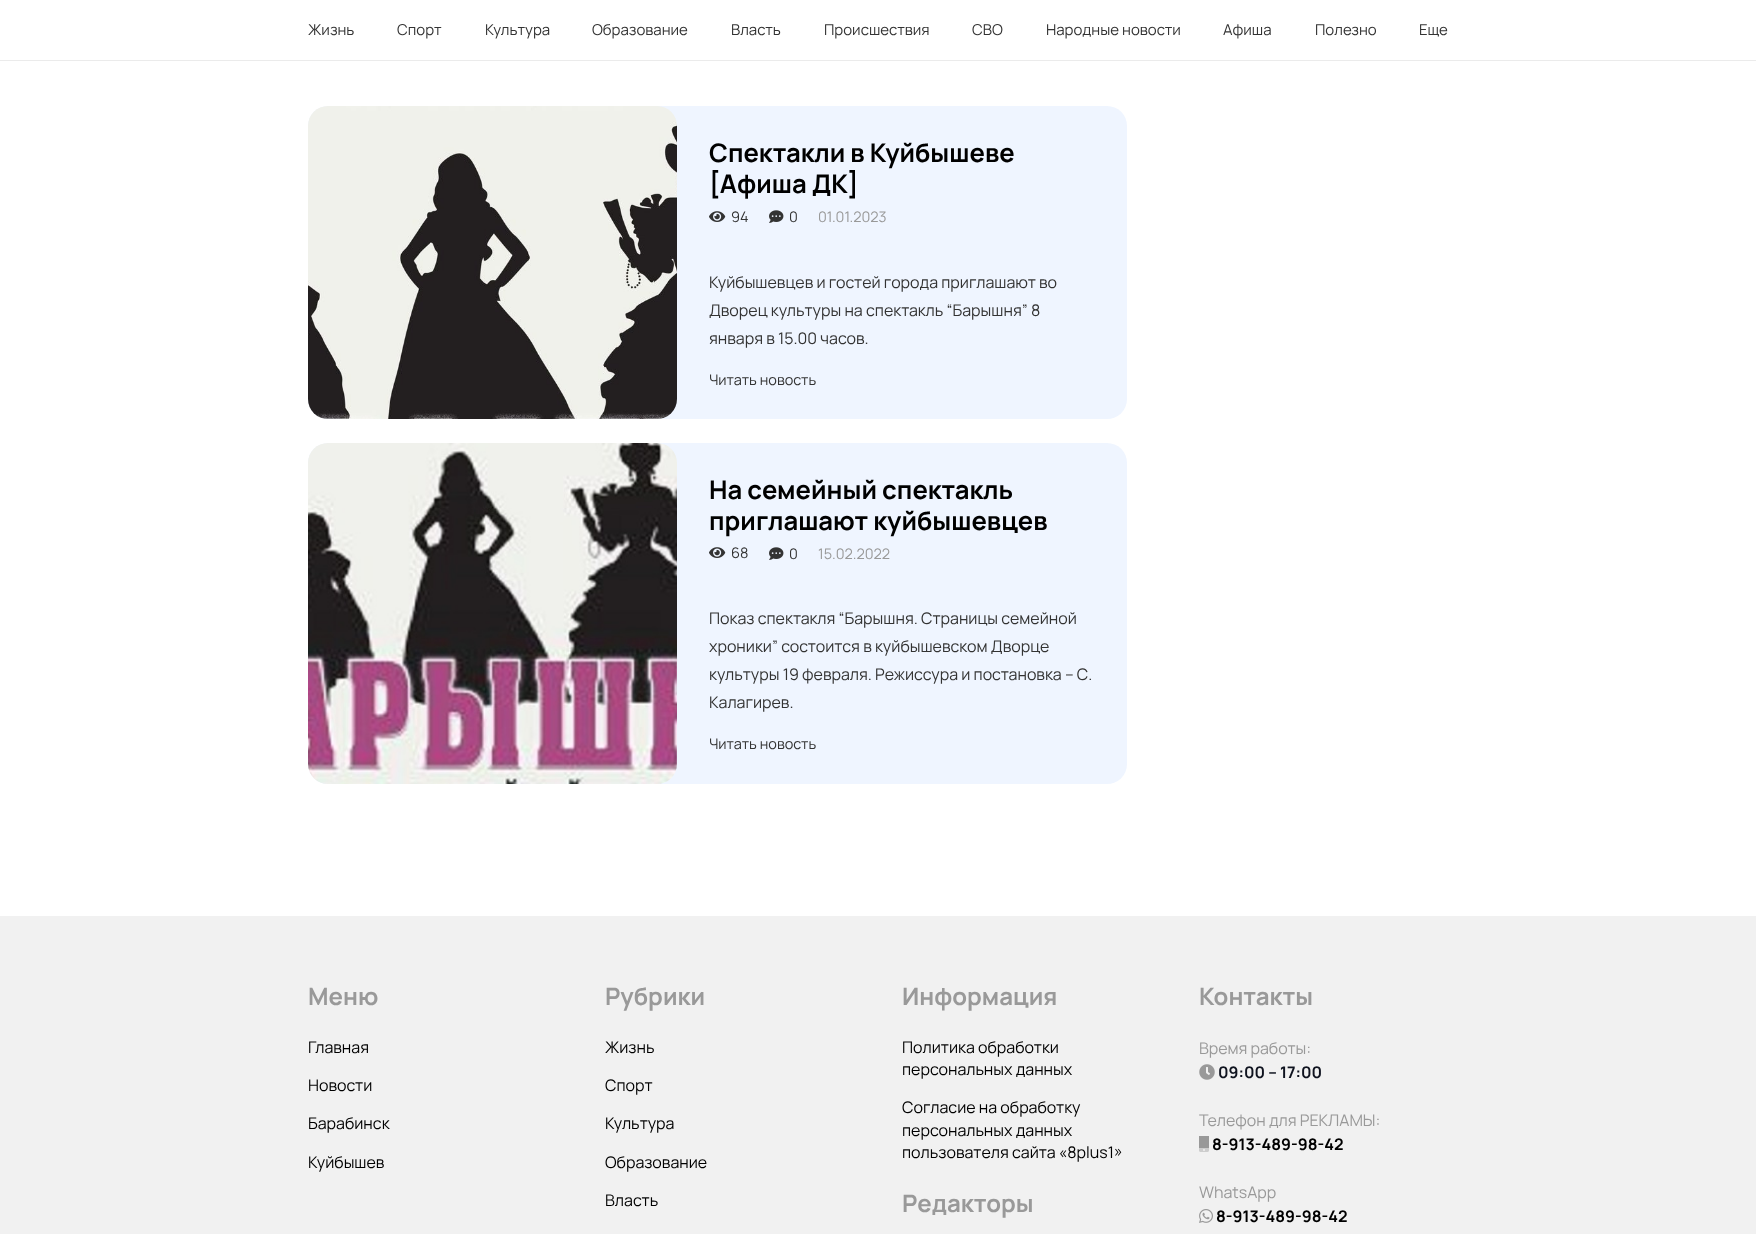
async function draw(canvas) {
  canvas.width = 1756
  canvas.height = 1234
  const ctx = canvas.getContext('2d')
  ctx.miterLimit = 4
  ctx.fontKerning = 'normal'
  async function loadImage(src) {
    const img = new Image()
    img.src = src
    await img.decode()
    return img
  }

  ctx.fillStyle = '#fff'
  ctx.fillRect(0, 0, 1756, 1234)
  ctx.fillStyle = '#ebebeb'
  ctx.fillRect(0, 60, 1756, 1)
  ctx.font = '15px Manrope'
  ctx.fillStyle = '#333'
  ctx.fillText('Жизнь', 308, 35)
  ctx.fillText('Спорт', 397, 35)
  ctx.fillText('Культура', 485, 35)
  ctx.fillText('Образование', 592, 35)
  ctx.fillText('Власть', 731, 35)
  ctx.fillText('Происшествия', 824, 35)
  ctx.fillText('СВО', 972, 35)
  ctx.fillText('Народные новости', 1046, 35)
  ctx.fillText('Афиша', 1223, 35)
  ctx.fillText('Полезно', 1315, 35)
  ctx.fillText('Еще', 1419, 35)
  ctx.fillStyle = '#eff5ff'
  ctx.beginPath()
  ctx.roundRect(308, 106, 819, 313, 20)
  ctx.fill()
  ctx.drawImage(await loadImage('image0.png'), 308, 106, 369, 313)
  ctx.font = 'bold 25.6px Manrope'
  ctx.fillStyle = '#000'
  ctx.fillText('Спектакли в Куйбышеве', 709, 162)
  ctx.fillText('[Афиша ДК]', 709, 193)
  ctx.drawImage(await loadImage('image1.png'), 709, 211, 17, 11)
  ctx.font = '14.5px Manrope'
  ctx.fillStyle = '#333'
  ctx.fillText('94', 731, 222)
  ctx.drawImage(await loadImage('image2.png'), 769, 210, 15, 13)
  ctx.fillText('0', 789, 222)
  ctx.fillStyle = '#999'
  ctx.fillText('01.01.2023', 818, 222)
  ctx.font = '16px Manrope'
  ctx.fillStyle = '#333'
  ctx.fillText('Куйбышевцев и гостей города приглашают во', 709, 288)
  ctx.fillText('Дворец культуры на спектакль “Барышня” 8', 709, 316)
  ctx.fillText('января в 15.00 часов.', 709, 344)
  ctx.font = '14.5px Manrope'
  ctx.fillText('Читать новость', 709, 385)
  ctx.fillStyle = '#eff5ff'
  ctx.beginPath()
  ctx.roundRect(308, 443, 819, 341, 20)
  ctx.fill()
  ctx.drawImage(await loadImage('image3.png'), 308, 443, 369, 341)
  ctx.font = 'bold 25.6px Manrope'
  ctx.fillStyle = '#000'
  ctx.fillText('На семейный спектакль', 709, 499)
  ctx.fillText('приглашают куйбышевцев', 709, 530)
  ctx.drawImage(await loadImage('image1.png'), 709, 547, 17, 11)
  ctx.font = '14.5px Manrope'
  ctx.fillStyle = '#333'
  ctx.fillText('68', 731, 558)
  ctx.drawImage(await loadImage('image2.png'), 769, 547, 15, 13)
  ctx.fillText('0', 789, 559)
  ctx.fillStyle = '#999'
  ctx.fillText('15.02.2022', 818, 559)
  ctx.font = '16px Manrope'
  ctx.fillStyle = '#333'
  ctx.fillText('Показ спектакля “Барышня. Страницы семейной', 709, 624)
  ctx.fillText('хроники” состоится в куйбышевском Дворце', 709, 652)
  ctx.fillText('культуры 19 февраля. Режиссура и постановка – С.', 709, 680)
  ctx.fillText('Калагирев.', 709, 708)
  ctx.font = '14.5px Manrope'
  ctx.fillText('Читать новость', 709, 749)
  ctx.fillStyle = '#f1f1f1'
  ctx.fillRect(0, 916, 1756, 318)
  ctx.font = 'bold 24px Manrope'
  ctx.fillStyle = '#999'
  ctx.fillText('Меню', 308, 1005)
  ctx.font = '16px Manrope'
  ctx.fillStyle = '#000'
  ctx.fillText('Главная', 308, 1053)
  ctx.fillText('Новости', 308, 1091)
  ctx.fillText('Барабинск', 308, 1129)
  ctx.fillText('Куйбышев', 308, 1168)
  ctx.font = 'bold 24px Manrope'
  ctx.fillStyle = '#999'
  ctx.fillText('Рубрики', 605, 1005)
  ctx.font = '16px Manrope'
  ctx.fillStyle = '#000'
  ctx.fillText('Жизнь', 605, 1053)
  ctx.fillText('Спорт', 605, 1091)
  ctx.fillText('Культура', 605, 1129)
  ctx.fillText('Образование', 605, 1168)
  ctx.fillText('Власть', 605, 1206)
  ctx.font = 'bold 24px Manrope'
  ctx.fillStyle = '#999'
  ctx.fillText('Информация', 902, 1005)
  ctx.font = '16px Manrope'
  ctx.fillStyle = '#000'
  ctx.fillText('Политика обработки', 902, 1053)
  ctx.fillText('персональных данных', 902, 1075)
  ctx.fillText('Согласие на обработку', 902, 1113)
  ctx.fillText('персональных данных', 902, 1136)
  ctx.fillText('пользователя сайта «8plus1»', 902, 1158)
  ctx.font = 'bold 24px Manrope'
  ctx.fillStyle = '#999'
  ctx.fillText('Редакторы', 902, 1212)
  ctx.fillText('Контакты', 1199, 1005)
  ctx.font = '16px Manrope'
  ctx.fillText('Время работы:', 1199, 1054)
  ctx.drawImage(await loadImage('image4.png'), 1199, 1064, 16, 16)
  ctx.font = 'bold 16px Manrope'
  ctx.fillStyle = '#0f131f'
  ctx.fillText('09:00 – 17:00', 1218, 1078)
  ctx.font = '16px Manrope'
  ctx.fillStyle = '#999'
  ctx.fillText('Телефон для РЕКЛАМЫ:', 1199, 1126)
  ctx.fillRect(1199, 1136, 10, 12)
  ctx.drawImage(await loadImage('image5.png'), 1199, 1148, 10, 4)
  ctx.font = 'bold 16px Manrope'
  ctx.fillStyle = '#000'
  ctx.fillText('8-913-489-98-42', 1212, 1150)
  ctx.font = '16px Manrope'
  ctx.fillStyle = '#999'
  ctx.fillText('WhatsApp', 1199, 1198)
  ctx.drawImage(await loadImage('image6.png'), 1199, 1209, 14, 14)
  ctx.font = 'bold 16px Manrope'
  ctx.fillStyle = '#000'
  ctx.fillText('8-913-489-98-42', 1216, 1222)
}

draw(document.querySelector('canvas'))
